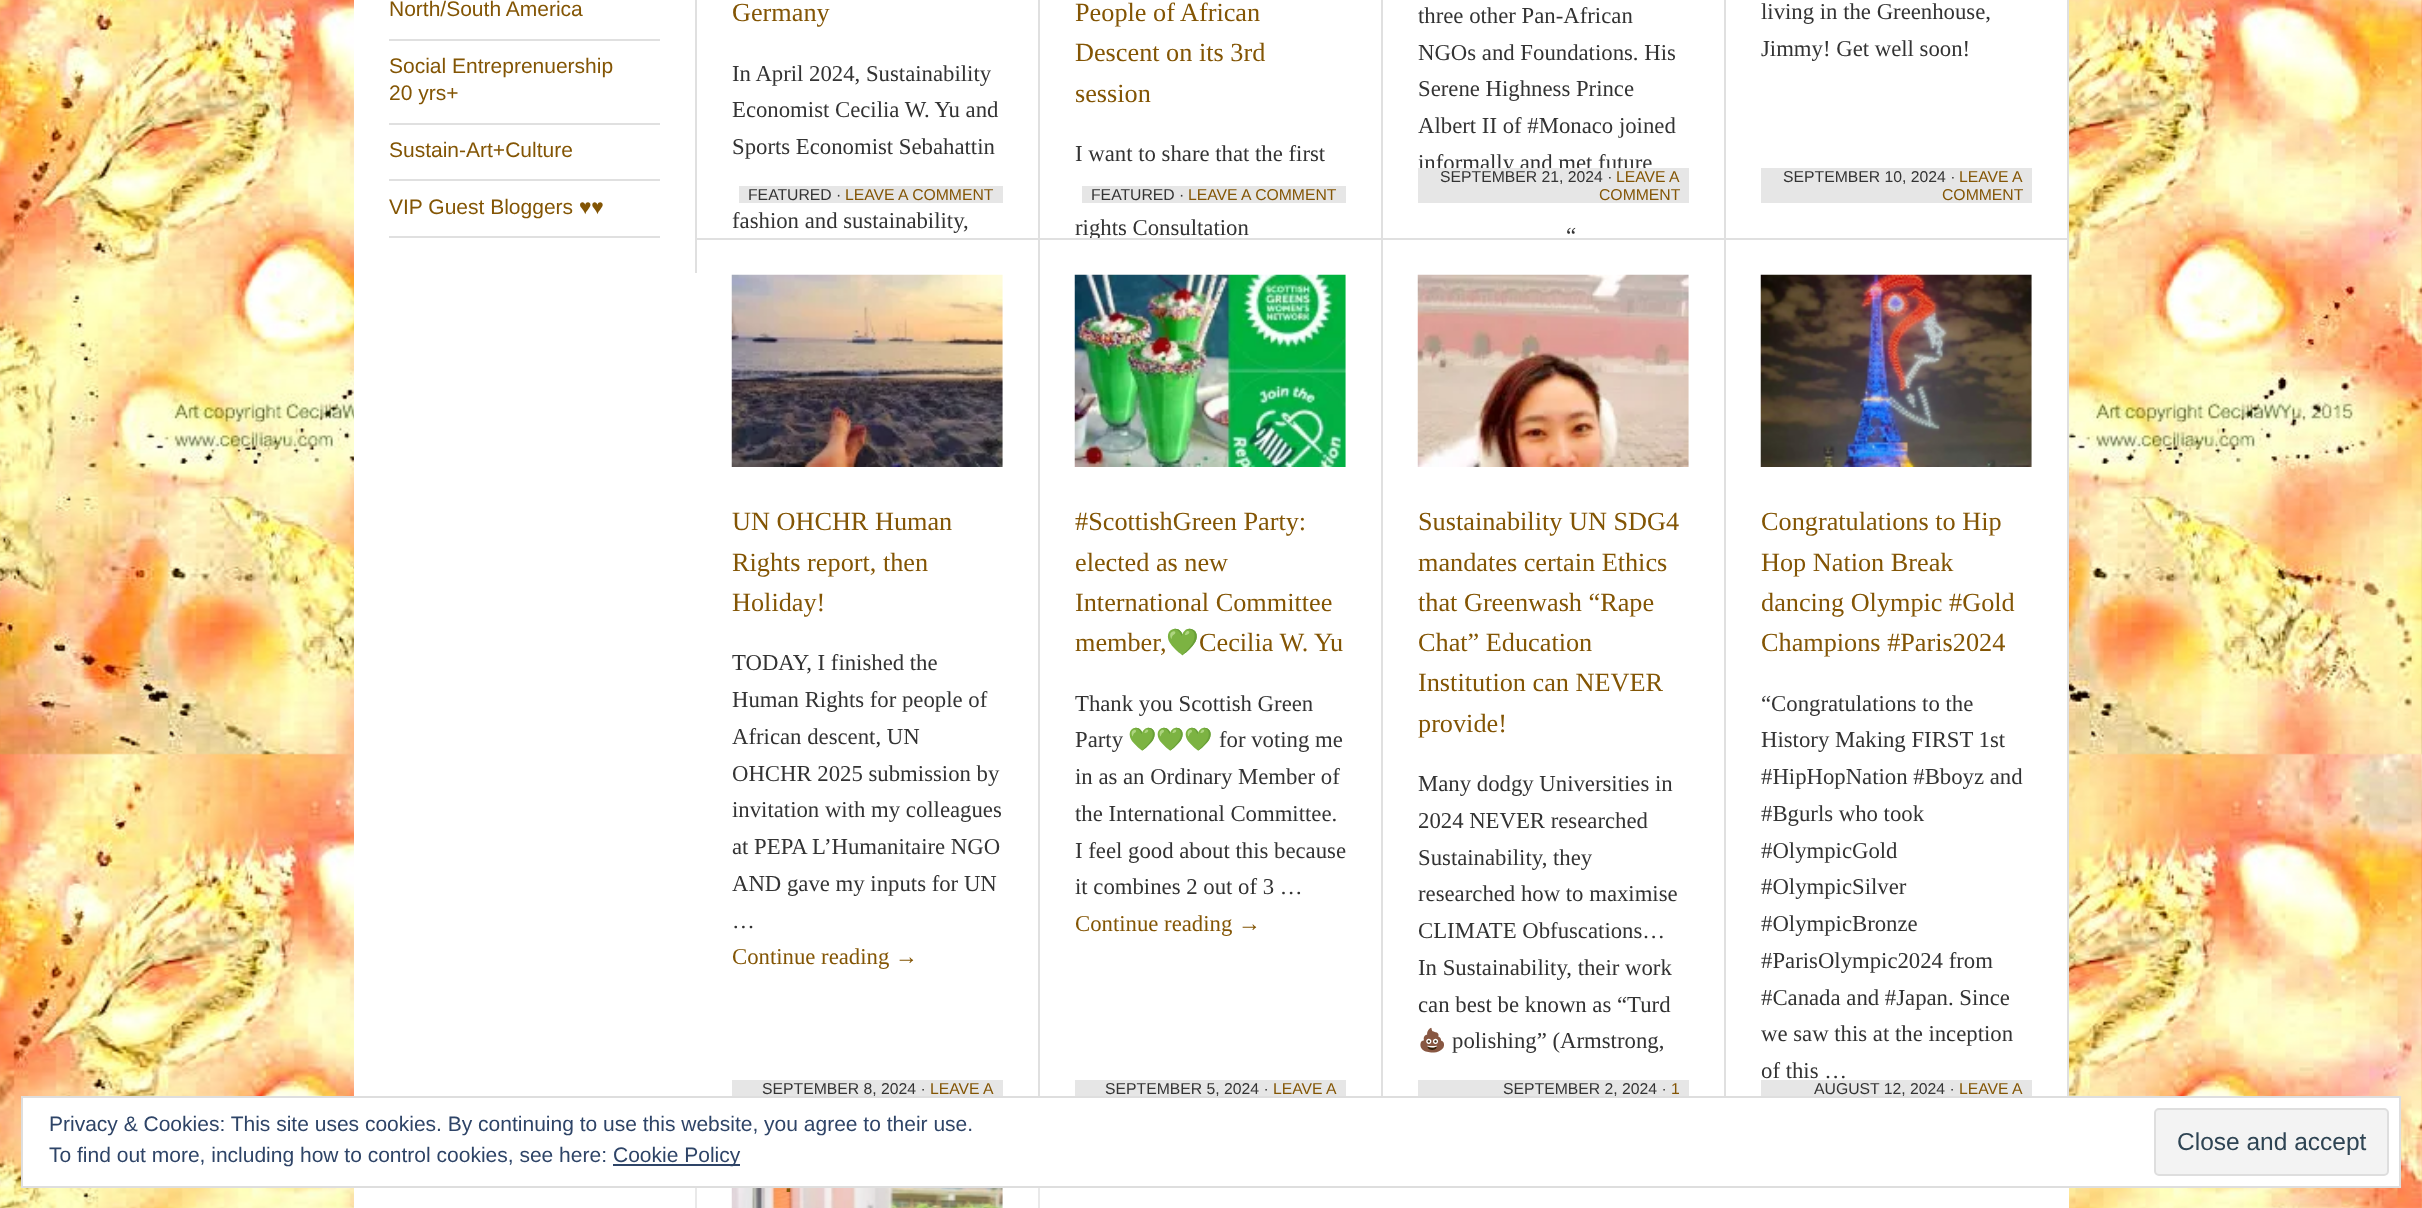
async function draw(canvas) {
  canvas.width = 2422
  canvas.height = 1208
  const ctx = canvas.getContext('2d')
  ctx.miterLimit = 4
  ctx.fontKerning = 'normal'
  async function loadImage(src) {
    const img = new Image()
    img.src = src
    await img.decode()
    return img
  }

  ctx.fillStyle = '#fff'
  ctx.fillRect(0, 0, 2422, 1208)
  ctx.drawImage(await loadImage('image0.png'), 0, 0, 2422, 1208)
  ctx.fillRect(354, 0, 1715, 1208)
  ctx.fillStyle = '#e0e0e0'
  ctx.fillRect(695, 0, 2, 273)
  ctx.fillRect(389, 39, 271, 2)
  ctx.font = '21px Liberation Sans'
  ctx.fillStyle = '#835504'
  ctx.fillText('North/South America', 389, 16)
  ctx.fillStyle = '#e0e0e0'
  ctx.fillRect(389, 123, 271, 2)
  ctx.fillStyle = '#835504'
  ctx.fillText('Social Entreprenuership', 389, 73)
  ctx.fillText('20 yrs+', 389, 100)
  ctx.fillStyle = '#e0e0e0'
  ctx.fillRect(389, 179, 271, 2)
  ctx.fillStyle = '#835504'
  ctx.fillText('Sustain-Art+Culture', 389, 157)
  ctx.fillStyle = '#e0e0e0'
  ctx.fillRect(389, 236, 271, 2)
  ctx.fillStyle = '#835504'
  ctx.fillText('VIP Guest Bloggers ♥♥', 389, 214)
  ctx.fillStyle = '#e0e0e0'
  ctx.fillRect(1038, 0, 2, 238)
  ctx.font = '26.25px Liberation Serif'
  ctx.fillStyle = '#835504'
  ctx.fillText('Germany', 732, 21)
  ctx.font = '22.75px Liberation Serif'
  ctx.fillStyle = '#333'
  ctx.fillText('In April 2024, Sustainability', 732, 81)
  ctx.fillText('Economist Cecilia W. Yu and', 732, 117)
  ctx.fillText('Sports Economist Sebahattin', 732, 154)
  ctx.fillText('fashion and sustainability,', 732, 228)
  ctx.fillStyle = '#e6e6e6'
  ctx.fillRect(739, 186, 264, 17)
  ctx.font = '15.75px Liberation Sans'
  ctx.fillStyle = '#333'
  ctx.fillText('FEATURED ·', 748, 200)
  ctx.fillStyle = '#835504'
  ctx.fillText('LEAVE A COMMENT', 845, 200)
  ctx.fillStyle = '#e0e0e0'
  ctx.fillRect(1381, 0, 2, 238)
  ctx.font = '26.25px Liberation Serif'
  ctx.fillStyle = '#835504'
  ctx.fillText('People of African', 1075, 21)
  ctx.fillText('Descent on its 3rd', 1075, 61)
  ctx.fillText('session', 1075, 102)
  ctx.font = '22.75px Liberation Serif'
  ctx.fillStyle = '#333'
  ctx.fillText('I want to share that the first', 1075, 161)
  ctx.fillText('rights Consultation', 1075, 235)
  ctx.fillStyle = '#e6e6e6'
  ctx.fillRect(1082, 186, 264, 17)
  ctx.font = '15.75px Liberation Sans'
  ctx.fillStyle = '#333'
  ctx.fillText('FEATURED ·', 1091, 200)
  ctx.fillStyle = '#835504'
  ctx.fillText('LEAVE A COMMENT', 1188, 200)
  ctx.fillStyle = '#e0e0e0'
  ctx.fillRect(1724, 0, 2, 238)
  ctx.font = '22.75px Liberation Serif'
  ctx.fillStyle = '#333'
  ctx.fillText('three other Pan-African', 1418, 23)
  ctx.fillText('NGOs and Foundations. His', 1418, 60)
  ctx.fillText('Serene Highness Prince', 1418, 96)
  ctx.fillText('Albert II of #Monaco joined', 1418, 133)
  ctx.fillText('informally and met future', 1418, 170)
  ctx.fillText('“', 1566, 243)
  ctx.fillStyle = '#e6e6e6'
  ctx.fillRect(1418, 168, 271, 35)
  ctx.font = '15.75px Liberation Sans'
  ctx.fillStyle = '#333'
  ctx.fillText('SEPTEMBER 21, 2024 ·', 1440, 182)
  ctx.fillStyle = '#835504'
  ctx.fillText('LEAVE A', 1616, 182)
  ctx.fillText('COMMENT', 1599, 200)
  ctx.fillStyle = '#e0e0e0'
  ctx.fillRect(2067, 0, 2, 238)
  ctx.font = '22.75px Liberation Serif'
  ctx.fillStyle = '#333'
  ctx.fillText('living in the Greenhouse,', 1761, 19)
  ctx.fillText('Jimmy! Get well soon!', 1761, 56)
  ctx.fillStyle = '#e6e6e6'
  ctx.fillRect(1761, 168, 271, 35)
  ctx.font = '15.75px Liberation Sans'
  ctx.fillStyle = '#333'
  ctx.fillText('SEPTEMBER 10, 2024 ·', 1783, 182)
  ctx.fillStyle = '#835504'
  ctx.fillText('LEAVE A', 1959, 182)
  ctx.fillText('COMMENT', 1942, 200)
  ctx.fillStyle = '#e0e0e0'
  ctx.fillRect(697, 238, 1372, 2)
  ctx.fillRect(1038, 238, 2, 858)
  ctx.drawImage(await loadImage('image1.png'), 731, 274, 272, 193)
  ctx.font = '26.25px Liberation Serif'
  ctx.fillStyle = '#835504'
  ctx.fillText('UN OHCHR Human', 732, 530)
  ctx.fillText('Rights report, then', 732, 571)
  ctx.fillText('Holiday!', 732, 611)
  ctx.font = '22.75px Liberation Serif'
  ctx.fillStyle = '#333'
  ctx.fillText('TODAY, I finished the', 732, 670)
  ctx.fillText('Human Rights for people of', 732, 707)
  ctx.fillText('African descent, UN', 732, 744)
  ctx.fillText('OHCHR 2025 submission by', 732, 781)
  ctx.fillText('invitation with my colleagues', 732, 817)
  ctx.fillText('at PEPA L’Humanitaire NGO', 732, 854)
  ctx.fillText('AND gave my inputs for UN', 732, 891)
  ctx.fillText('…', 732, 928)
  ctx.fillStyle = '#835504'
  ctx.fillText('Continue reading →', 732, 964)
  ctx.fillStyle = '#e6e6e6'
  ctx.fillRect(732, 1080, 271, 16)
  ctx.font = '15.75px Liberation Sans'
  ctx.fillStyle = '#333'
  ctx.fillText('SEPTEMBER 8, 2024 ·', 762, 1094)
  ctx.fillStyle = '#835504'
  ctx.fillText('LEAVE A', 930, 1094)
  ctx.fillStyle = '#e0e0e0'
  ctx.fillRect(1381, 238, 2, 858)
  ctx.drawImage(await loadImage('image2.png'), 1074, 274, 272, 193)
  ctx.font = '26.25px Liberation Serif'
  ctx.fillStyle = '#835504'
  ctx.fillText('#ScottishGreen Party:', 1075, 530)
  ctx.fillText('elected as new', 1075, 571)
  ctx.fillText('International Committee', 1075, 611)
  ctx.fillText('member,', 1075, 651)
  ctx.font = '26.25px Noto Color Emoji'
  ctx.fillText('💚', 1166, 651)
  ctx.font = '26.25px Liberation Serif'
  ctx.fillText('Cecilia W. Yu', 1199, 651)
  ctx.font = '22.75px Liberation Serif'
  ctx.fillStyle = '#333'
  ctx.fillText('Thank you Scottish Green', 1075, 711)
  ctx.fillText('Party', 1075, 747)
  ctx.font = '22.75px Noto Color Emoji'
  ctx.fillText('💚💚💚', 1128, 747)
  ctx.font = '22.75px Liberation Serif'
  ctx.fillText('for voting me', 1219, 747)
  ctx.fillText('in as an Ordinary Member of', 1075, 784)
  ctx.fillText('the International Committee.', 1075, 821)
  ctx.fillText('I feel good about this because', 1075, 858)
  ctx.fillText('it combines 2 out of 3 …', 1075, 894)
  ctx.fillStyle = '#835504'
  ctx.fillText('Continue reading →', 1075, 931)
  ctx.fillStyle = '#e6e6e6'
  ctx.fillRect(1075, 1080, 271, 16)
  ctx.font = '15.75px Liberation Sans'
  ctx.fillStyle = '#333'
  ctx.fillText('SEPTEMBER 5, 2024 ·', 1105, 1094)
  ctx.fillStyle = '#835504'
  ctx.fillText('LEAVE A', 1273, 1094)
  ctx.fillStyle = '#e0e0e0'
  ctx.fillRect(1724, 238, 2, 858)
  ctx.drawImage(await loadImage('image3.png'), 1417, 274, 272, 193)
  ctx.font = '26.25px Liberation Serif'
  ctx.fillStyle = '#835504'
  ctx.fillText('Sustainability UN SDG4', 1418, 530)
  ctx.fillText('mandates certain Ethics', 1418, 571)
  ctx.fillText('that Greenwash “Rape', 1418, 611)
  ctx.fillText('Chat” Education', 1418, 651)
  ctx.fillText('Institution can NEVER', 1418, 691)
  ctx.fillText('provide!', 1418, 732)
  ctx.font = '22.75px Liberation Serif'
  ctx.fillStyle = '#333'
  ctx.fillText('Many dodgy Universities in', 1418, 791)
  ctx.fillText('2024 NEVER researched', 1418, 828)
  ctx.fillText('Sustainability, they', 1418, 865)
  ctx.fillText('researched how to maximise', 1418, 901)
  ctx.fillText('CLIMATE Obfuscations…', 1418, 938)
  ctx.fillText('In Sustainability, their work', 1418, 975)
  ctx.fillText('can best be known as “Turd', 1418, 1012)
  ctx.font = '22.75px Noto Color Emoji'
  ctx.fillText('💩', 1418, 1048)
  ctx.font = '22.75px Liberation Serif'
  ctx.fillText('polishing” (Armstrong,', 1452, 1048)
  ctx.fillStyle = '#e6e6e6'
  ctx.fillRect(1418, 1080, 271, 16)
  ctx.font = '15.75px Liberation Sans'
  ctx.fillStyle = '#333'
  ctx.fillText('SEPTEMBER 2, 2024 ·', 1503, 1094)
  ctx.fillStyle = '#835504'
  ctx.fillText('1', 1671, 1094)
  ctx.fillStyle = '#e0e0e0'
  ctx.fillRect(2067, 238, 2, 858)
  ctx.drawImage(await loadImage('image4.png'), 1760, 274, 272, 193)
  ctx.font = '26.25px Liberation Serif'
  ctx.fillStyle = '#835504'
  ctx.fillText('Congratulations to Hip', 1761, 530)
  ctx.fillText('Hop Nation Break', 1761, 571)
  ctx.fillText('dancing Olympic #Gold', 1761, 611)
  ctx.fillText('Champions #Paris2024', 1761, 651)
  ctx.font = '22.75px Liberation Serif'
  ctx.fillStyle = '#333'
  ctx.fillText('“Congratulations to the', 1761, 711)
  ctx.fillText('History Making FIRST 1st', 1761, 747)
  ctx.fillText('#HipHopNation #Bboyz and', 1761, 784)
  ctx.fillText('#Bgurls who took', 1761, 821)
  ctx.fillText('#OlympicGold', 1761, 858)
  ctx.fillText('#OlympicSilver', 1761, 894)
  ctx.fillText('#OlympicBronze', 1761, 931)
  ctx.fillText('#ParisOlympic2024 from', 1761, 968)
  ctx.fillText('#Canada and #Japan. Since', 1761, 1005)
  ctx.fillText('we saw this at the inception', 1761, 1041)
  ctx.fillText('of this …', 1761, 1078)
  ctx.fillStyle = '#e6e6e6'
  ctx.fillRect(1761, 1080, 271, 16)
  ctx.font = '15.75px Liberation Sans'
  ctx.fillStyle = '#333'
  ctx.fillText('AUGUST 12, 2024 ·', 1814, 1094)
  ctx.fillStyle = '#835504'
  ctx.fillText('LEAVE A', 1959, 1094)
  ctx.fillStyle = '#e0e0e0'
  ctx.fillRect(695, 1188, 2, 20)
  ctx.fillRect(1038, 1188, 2, 20)
  ctx.drawImage(await loadImage('image5.png'), 731, 1188, 272, 20)
  ctx.fillStyle = '#fff'
  ctx.beginPath()
  ctx.rect(22, 1097, 2378, 90)
  ctx.fill()
  ctx.strokeStyle = '#dedede'
  ctx.lineWidth = 2
  ctx.stroke()
  ctx.font = '21px Liberation Sans'
  ctx.fillStyle = '#2e4467'
  ctx.fillText('Privacy & Cookies: This site uses cookies. By continuing to use this website, you agree to their use.', 49, 1131)
  ctx.fillText('To find out more, including how to control cookies, see here:', 49, 1162)
  ctx.fillRect(613, 1164, 127, 2)
  ctx.fillText('Cookie Policy', 613, 1162)
  ctx.fillStyle = '#f3f3f3'
  ctx.beginPath()
  ctx.roundRect(2155, 1109, 233, 66, 4)
  ctx.fill()
  ctx.stroke()
  ctx.font = '24.5px Liberation Sans'
  ctx.fillStyle = '#2e4453'
  ctx.fillText('Close and accept', 2177, 1150)
  ctx.fillStyle = '#ffffff4d'
  ctx.fillRect(695, 1188, 345, 20)
  ctx.font = 'bold 24.5px Liberation Sans'
  ctx.fillStyle = '#835504'
  ctx.fillText('.', 785, 1192)
}

draw(document.querySelector('canvas'))
